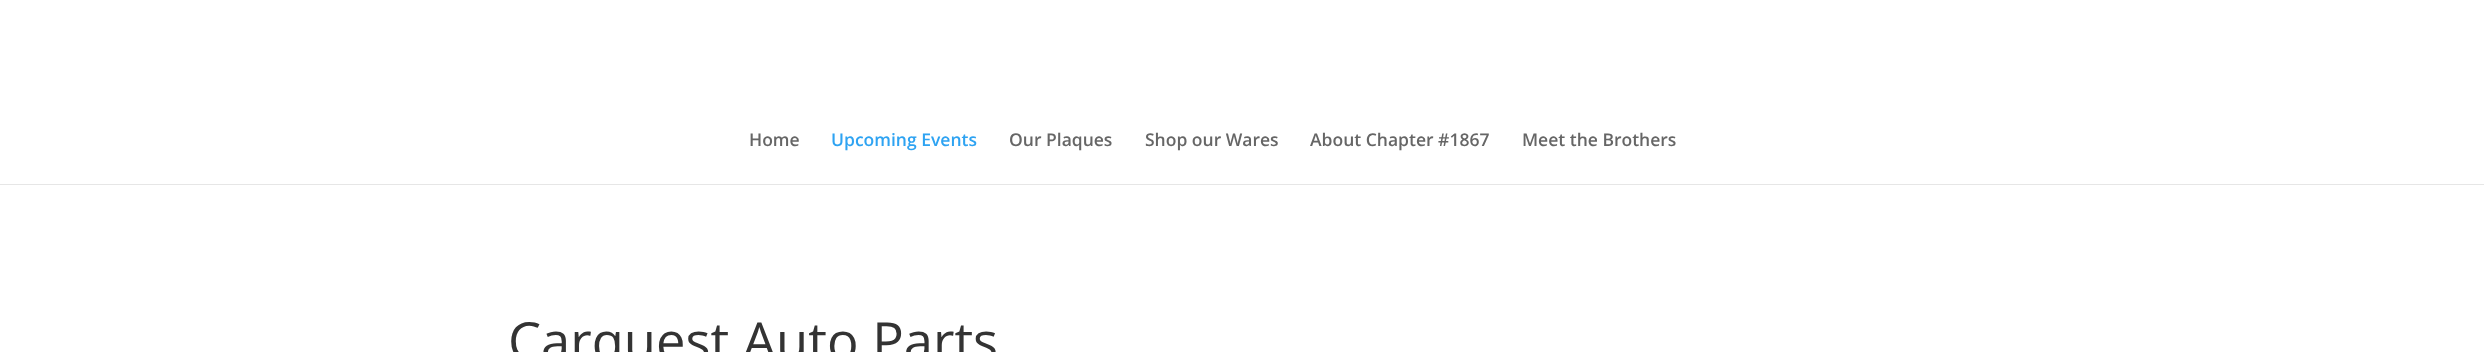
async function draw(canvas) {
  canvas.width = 2484
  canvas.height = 352
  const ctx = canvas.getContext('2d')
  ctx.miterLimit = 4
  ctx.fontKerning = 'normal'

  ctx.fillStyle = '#fff'
  ctx.fillRect(0, 0, 2484, 352)
  ctx.fillStyle = '#e6e6e6'
  ctx.fillRect(0, 184, 2484, 1)
  ctx.font = '600 17.5px Open Sans'
  ctx.fillStyle = '#666'
  ctx.fillText('Home', 749, 146)
  ctx.fillStyle = '#2ea3f2'
  ctx.fillText('Upcoming Events', 831, 146)
  ctx.fillStyle = '#666'
  ctx.fillText('Our Plaques', 1009, 146)
  ctx.fillText('Shop our Wares', 1145, 146)
  ctx.fillText('About Chapter #1867', 1310, 146)
  ctx.fillText('Meet the Brothers', 1522, 146)
  ctx.font = '52.5px Open Sans'
  ctx.fillStyle = '#333'
  ctx.fillText('Carquest Auto Parts', 508, 360)
}

draw(document.querySelector('canvas'))
